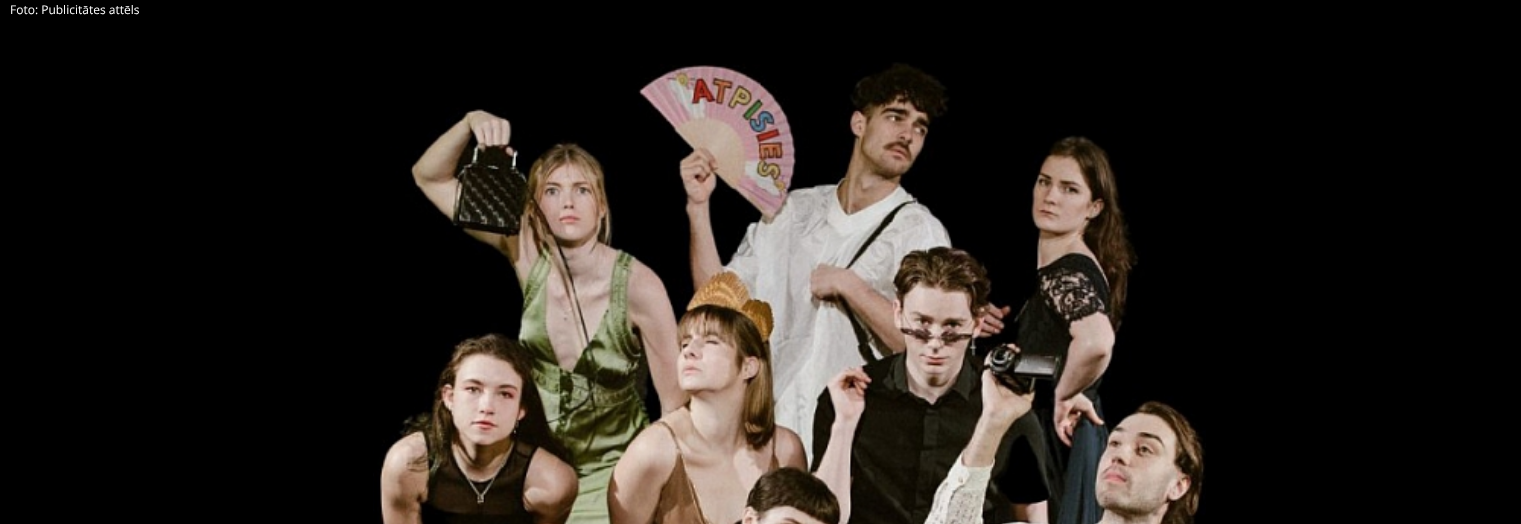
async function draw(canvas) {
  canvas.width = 1521
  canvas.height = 524
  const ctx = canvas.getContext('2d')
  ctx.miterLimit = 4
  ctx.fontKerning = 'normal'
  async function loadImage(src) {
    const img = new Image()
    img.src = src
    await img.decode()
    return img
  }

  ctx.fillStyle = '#000'
  ctx.fillRect(0, 0, 1521, 524)
  ctx.drawImage(await loadImage('image0.png'), 373, 62, 833, 462)
  ctx.font = '12px Open Sans'
  ctx.fillStyle = '#fff'
  ctx.fillText('Foto: Publicitātes attēls', 10, 14)
}

draw(document.querySelector('canvas'))
